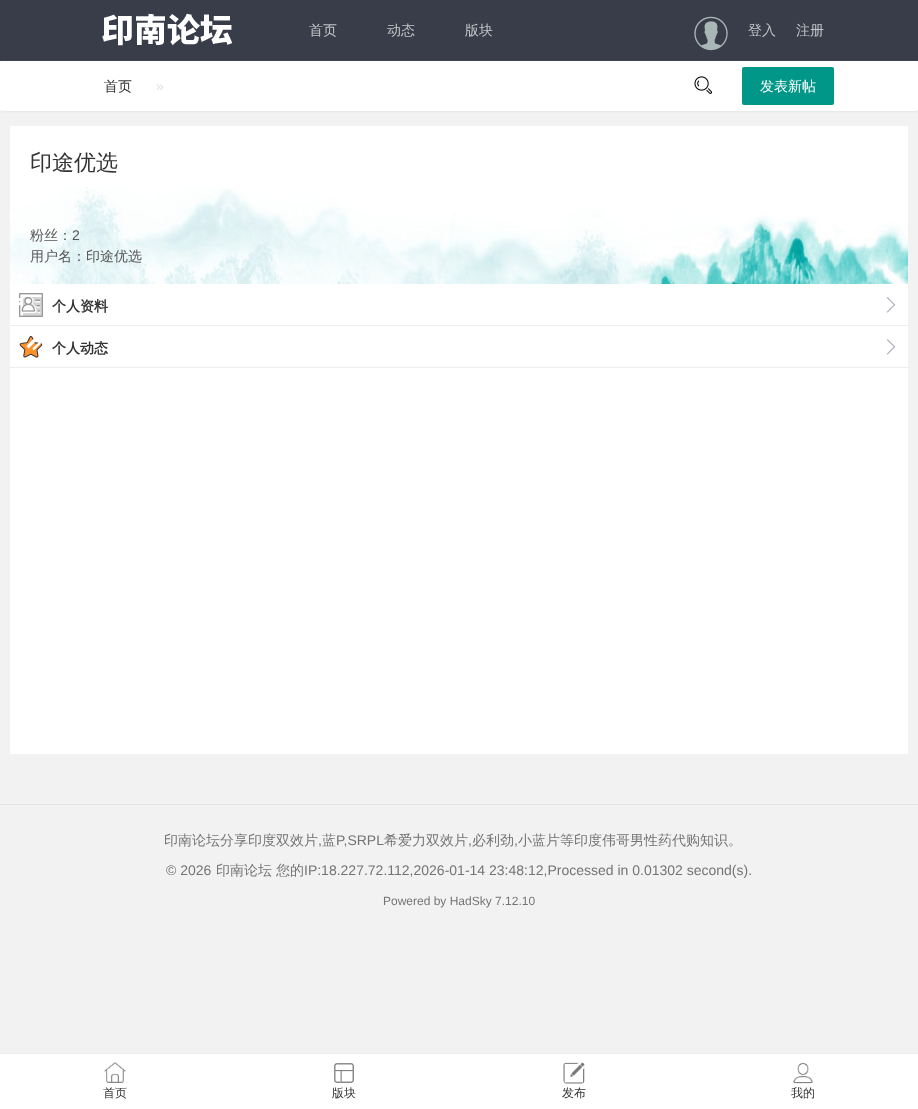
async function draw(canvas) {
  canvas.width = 918
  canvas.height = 1109
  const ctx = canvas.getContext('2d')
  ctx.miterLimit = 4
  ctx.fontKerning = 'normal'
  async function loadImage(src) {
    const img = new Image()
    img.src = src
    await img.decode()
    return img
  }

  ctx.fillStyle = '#f2f2f2'
  ctx.fillRect(0, 0, 918, 1109)
  ctx.fillStyle = '#0000000d'
  ctx.filter = 'blur(1px)'
  ctx.beginPath()
  ctx.roundRect(0, 62, 918, 50, 2)
  ctx.fill()
  ctx.filter = 'none'
  ctx.fillStyle = '#393d49'
  ctx.fillRect(0, 0, 918, 60)
  ctx.fillStyle = '#404553'
  ctx.fillRect(0, 60, 918, 1)
  ctx.drawImage(await loadImage('image0.png'), 102, 13, 131, 33)
  ctx.font = '500 14px WenQuanYi Zen Hei'
  ctx.fillStyle = '#c4c5c8'
  ctx.fillText('首页', 309, 35)
  ctx.fillText('动态', 387, 35)
  ctx.fillText('版块', 465, 35)
  ctx.drawImage(await loadImage('image1.png'), 694, 16, 34, 35)
  ctx.fillText('登入', 748, 35)
  ctx.fillText('注册', 796, 35)
  ctx.fillStyle = '#fff'
  ctx.beginPath()
  ctx.roundRect(0, 61, 918, 50, 2)
  ctx.fill()
  ctx.fillStyle = '#333'
  ctx.fillText('首页', 104, 91)
  ctx.font = '14px Liberation Sans'
  ctx.fillStyle = '#e2e2e2'
  ctx.fillText('»', 156, 91)
  ctx.drawImage(await loadImage('image2.png'), 694, 76, 18, 18)
  ctx.fillStyle = '#009688'
  ctx.beginPath()
  ctx.roundRect(742, 67, 92, 38, 2)
  ctx.fill()
  ctx.font = '500 14px WenQuanYi Zen Hei'
  ctx.fillStyle = '#fff'
  ctx.fillText('发表新帖', 760, 91)
  ctx.fillRect(10, 126, 898, 628)
  ctx.drawImage(await loadImage('image3.png'), 10, 187, 898, 97)
  ctx.font = '500 22px WenQuanYi Zen Hei'
  ctx.fillStyle = '#333'
  ctx.fillText('印途优选', 30, 170)
  ctx.font = '500 14px WenQuanYi Zen Hei'
  ctx.fillStyle = '#555'
  ctx.fillText('粉丝：', 30, 240)
  ctx.font = '14px Liberation Sans'
  ctx.fillText('2', 72, 240)
  ctx.font = '500 14px WenQuanYi Zen Hei'
  ctx.fillText('用户名：印途优选', 30, 261)
  ctx.drawImage(await loadImage('image4.png'), 19, 293, 24, 24)
  ctx.fillStyle = '#eee'
  ctx.fillRect(10, 325, 898, 1)
  ctx.font = 'bold 14px WenQuanYi Zen Hei'
  ctx.fillStyle = '#333'
  ctx.fillText('个人资料', 52, 311)
  ctx.drawImage(await loadImage('image5.png'), 886, 297, 10, 16)
  ctx.drawImage(await loadImage('image6.png'), 19, 336, 24, 22)
  ctx.fillStyle = '#eee'
  ctx.fillRect(10, 367, 898, 1)
  ctx.fillStyle = '#333'
  ctx.fillText('个人动态', 52, 353)
  ctx.drawImage(await loadImage('image5.png'), 886, 339, 10, 16)
  ctx.fillStyle = '#e2e2e2'
  ctx.fillRect(0, 804, 918, 1)
  ctx.font = '500 14px WenQuanYi Zen Hei'
  ctx.fillStyle = '#737573'
  ctx.fillText('印南论坛分享印度双效片', 164, 845)
  ctx.font = '14px Liberation Sans'
  ctx.fillText(',', 318, 845)
  ctx.font = '500 14px WenQuanYi Zen Hei'
  ctx.fillText('蓝', 322, 845)
  ctx.font = '14px Liberation Sans'
  ctx.fillText('P,SRPL', 336, 845)
  ctx.font = '500 14px WenQuanYi Zen Hei'
  ctx.fillText('希爱力双效片', 384, 845)
  ctx.font = '14px Liberation Sans'
  ctx.fillText(',', 468, 845)
  ctx.font = '500 14px WenQuanYi Zen Hei'
  ctx.fillText('必利劲', 472, 845)
  ctx.font = '14px Liberation Sans'
  ctx.fillText(',', 514, 845)
  ctx.font = '500 14px WenQuanYi Zen Hei'
  ctx.fillText('小蓝片等印度伟哥男性药代购知识。', 518, 845)
  ctx.font = '14px Liberation Sans'
  ctx.fillText('© 2026', 166, 875)
  ctx.font = '500 14px WenQuanYi Zen Hei'
  ctx.fillText('印南论坛', 216, 875)
  ctx.fillText('您的', 276, 875)
  ctx.font = '14px Liberation Sans'
  ctx.fillText('IP:18.227.72.112,2026-01-14 23:48:12,Processed in 0.01302 second(s).', 304, 875)
  ctx.font = '12px Liberation Sans'
  ctx.fillText('Powered by HadSky 7.12.10', 383, 905)
  ctx.fillStyle = '#fff'
  ctx.fillRect(0, 1054, 918, 55)
  ctx.fillStyle = '#eee'
  ctx.fillRect(0, 1053, 918, 1)
  ctx.drawImage(await loadImage('image7.png'), 104, 1062, 22, 21)
  ctx.font = '500 12px WenQuanYi Zen Hei'
  ctx.fillStyle = '#333'
  ctx.fillText('首页', 103, 1097)
  ctx.drawImage(await loadImage('image8.png'), 334, 1063, 20, 20)
  ctx.fillText('版块', 332, 1097)
  ctx.drawImage(await loadImage('image9.png'), 563, 1062, 22, 22)
  ctx.fillText('发布', 562, 1097)
  ctx.drawImage(await loadImage('image10.png'), 793, 1062, 20, 22)
  ctx.fillText('我的', 791, 1097)
}

draw(document.querySelector('canvas'))
